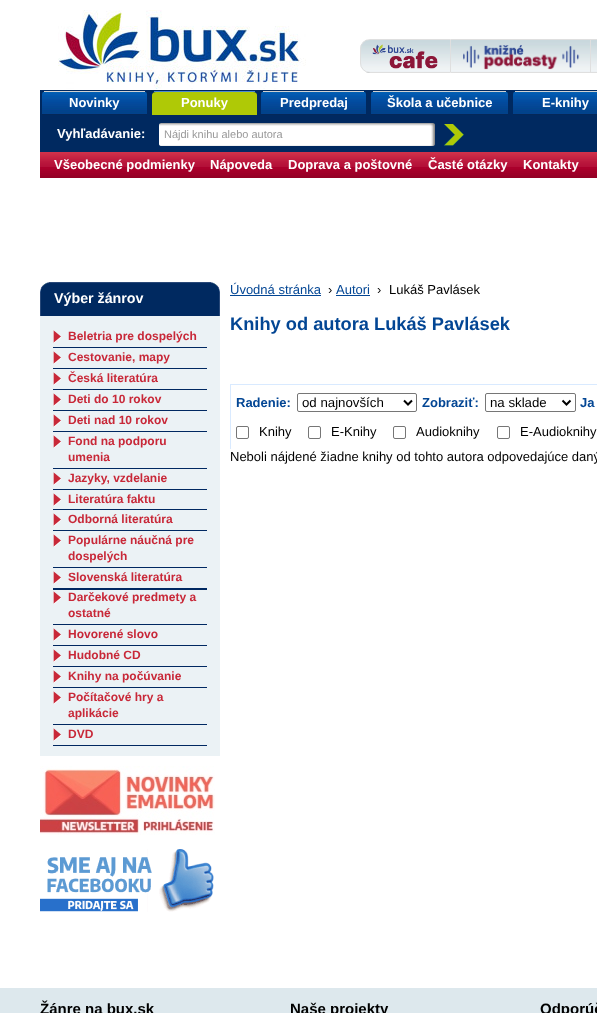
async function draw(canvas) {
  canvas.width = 597
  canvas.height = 1013
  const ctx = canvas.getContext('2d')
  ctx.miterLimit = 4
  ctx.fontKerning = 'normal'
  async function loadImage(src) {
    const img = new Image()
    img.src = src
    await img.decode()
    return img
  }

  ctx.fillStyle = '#fff'
  ctx.fillRect(0, 0, 597, 1013)
  ctx.drawImage(await loadImage('image0.png'), 50, 10, 256, 79)
  ctx.drawImage(await loadImage('image1.png'), 360, 40, 90, 33)
  ctx.beginPath()
  ctx.roundRect(360.5, 39.5, 90, 33, [9.5, 0, 0, 9.5])
  ctx.strokeStyle = '#dfdfdf'
  ctx.stroke()
  ctx.drawImage(await loadImage('image2.png'), 372, 44, 66, 25)
  ctx.drawImage(await loadImage('image3.png'), 451, 40, 139, 32)
  ctx.fillStyle = '#dfdfdf'
  ctx.fillRect(451, 39, 139, 1)
  ctx.fillRect(451, 72, 139, 1)
  ctx.drawImage(await loadImage('image4.png'), 463, 45, 117, 25)
  ctx.drawImage(await loadImage('image5.png'), 591, 40, 6, 32)
  ctx.strokeRect(590.5, 39.5, 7, 33)
  ctx.fillStyle = '#002960'
  ctx.fillRect(40, 90, 557, 62)
  ctx.drawImage(await loadImage('image6.png'), 42, 92, 105, 23)
  ctx.fillStyle = '#d1d1d1'
  ctx.fillRect(44, 91, 101, 1)
  ctx.font = 'bold 13px Liberation Sans'
  ctx.fillStyle = '#fff'
  ctx.fillText('Novinky', 69, 107)
  ctx.fillStyle = '#afc906'
  ctx.beginPath()
  ctx.moveTo(156, 92)
  ctx.lineTo(253, 92)
  ctx.bezierCurveTo(255, 92, 257, 93, 257, 95)
  ctx.lineTo(257, 115)
  ctx.lineTo(152, 115)
  ctx.lineTo(152, 95)
  ctx.bezierCurveTo(152, 93, 154, 92, 156, 92)
  ctx.closePath()
  ctx.fill()
  ctx.fillStyle = '#4c8ad5'
  ctx.fillRect(154, 91, 101, 1)
  ctx.fillStyle = '#fff'
  ctx.fillText('Ponuky', 181, 107)
  ctx.drawImage(await loadImage('image6.png'), 261, 92, 105, 23)
  ctx.fillStyle = '#d1d1d1'
  ctx.fillRect(263, 91, 101, 1)
  ctx.fillStyle = '#fff'
  ctx.fillText('Predpredaj', 280, 107)
  ctx.drawImage(await loadImage('image7.png'), 371, 92, 137, 23)
  ctx.fillStyle = '#d1d1d1'
  ctx.fillRect(373, 91, 133, 1)
  ctx.fillStyle = '#fff'
  ctx.fillText('Škola a učebnice', 387, 107)
  ctx.drawImage(await loadImage('image8.png'), 513, 92, 84, 23)
  ctx.fillStyle = '#d1d1d1'
  ctx.fillRect(515, 91, 82, 1)
  ctx.fillStyle = '#fff'
  ctx.fillText('E-knihy', 542, 107)
  ctx.fillText('Vyhľadávanie:', 57, 138)
  ctx.drawImage(await loadImage('image9.png'), 159, 123, 276, 23)
  ctx.font = '11px Liberation Sans'
  ctx.fillStyle = '#999'
  ctx.fillText('Nájdi knihu alebo autora', 164, 138)
  ctx.drawImage(await loadImage('image10.png'), 444, 124, 20, 22)
  ctx.drawImage(await loadImage('image11.png'), 40, 152, 557, 26)
  ctx.font = 'bold 13px Liberation Sans'
  ctx.fillStyle = '#fff'
  ctx.fillText('Všeobecné podmienky', 54, 169)
  ctx.fillText('Nápoveda', 210, 169)
  ctx.fillText('Doprava a poštovné', 288, 169)
  ctx.fillText('Časté otázky', 428, 169)
  ctx.fillText('Kontakty', 523, 169)
  ctx.drawImage(await loadImage('image12.png'), 40, 282, 171, 34)
  ctx.drawImage(await loadImage('image13.png'), 211, 282, 9, 34)
  ctx.font = 'bold 14.25px Liberation Sans'
  ctx.fillText('Výber žánrov', 54, 303)
  ctx.fillStyle = '#ebf2f5'
  ctx.fillRect(40, 316, 180, 440)
  ctx.fillStyle = '#002861'
  ctx.fillRect(53, 347, 154, 1)
  ctx.drawImage(await loadImage('image14.png'), 53, 330, 8, 13)
  ctx.font = 'bold 12px Liberation Sans'
  ctx.fillStyle = '#c82838'
  ctx.fillText('Beletria pre dospelých', 68, 340)
  ctx.fillStyle = '#002861'
  ctx.fillRect(53, 368, 154, 1)
  ctx.drawImage(await loadImage('image14.png'), 53, 351, 8, 13)
  ctx.fillStyle = '#c82838'
  ctx.fillText('Cestovanie, mapy', 68, 361)
  ctx.fillStyle = '#002861'
  ctx.fillRect(53, 389, 154, 1)
  ctx.drawImage(await loadImage('image14.png'), 53, 372, 8, 13)
  ctx.fillStyle = '#c82838'
  ctx.fillText('Česká literatúra', 68, 382)
  ctx.fillStyle = '#002861'
  ctx.fillRect(53, 410, 154, 1)
  ctx.drawImage(await loadImage('image14.png'), 53, 393, 8, 13)
  ctx.fillStyle = '#c82838'
  ctx.fillText('Deti do 10 rokov', 68, 403)
  ctx.fillStyle = '#002861'
  ctx.fillRect(53, 431, 154, 1)
  ctx.drawImage(await loadImage('image14.png'), 53, 414, 8, 13)
  ctx.fillStyle = '#c82838'
  ctx.fillText('Deti nad 10 rokov', 68, 424)
  ctx.fillStyle = '#002861'
  ctx.fillRect(53, 468, 154, 1)
  ctx.drawImage(await loadImage('image14.png'), 53, 435, 8, 13)
  ctx.fillStyle = '#c82838'
  ctx.fillText('Fond na podporu', 68, 445)
  ctx.fillText('umenia', 68, 461)
  ctx.fillStyle = '#002861'
  ctx.fillRect(53, 489, 154, 1)
  ctx.drawImage(await loadImage('image14.png'), 53, 472, 8, 13)
  ctx.fillStyle = '#c82838'
  ctx.fillText('Jazyky, vzdelanie', 68, 482)
  ctx.fillStyle = '#002861'
  ctx.fillRect(53, 509, 154, 1)
  ctx.drawImage(await loadImage('image14.png'), 53, 493, 8, 13)
  ctx.fillStyle = '#c82838'
  ctx.fillText('Literatúra faktu', 68, 503)
  ctx.fillStyle = '#002861'
  ctx.fillRect(53, 530, 154, 1)
  ctx.drawImage(await loadImage('image14.png'), 53, 513, 8, 13)
  ctx.fillStyle = '#c82838'
  ctx.fillText('Odborná literatúra', 68, 523)
  ctx.fillStyle = '#002861'
  ctx.fillRect(53, 567, 154, 1)
  ctx.drawImage(await loadImage('image14.png'), 53, 534, 8, 13)
  ctx.fillStyle = '#c82838'
  ctx.fillText('Populárne náučná pre', 68, 544)
  ctx.fillText('dospelých', 68, 560)
  ctx.drawImage(await loadImage('image14.png'), 53, 571, 8, 13)
  ctx.fillText('Slovenská literatúra', 68, 581)
  ctx.fillStyle = '#002861'
  ctx.fillRect(53, 588, 154, 2)
  ctx.fillRect(53, 624, 154, 1)
  ctx.drawImage(await loadImage('image14.png'), 53, 591, 8, 13)
  ctx.fillStyle = '#c82838'
  ctx.fillText('Darčekové predmety a', 68, 601)
  ctx.fillText('ostatné', 68, 617)
  ctx.fillStyle = '#002861'
  ctx.fillRect(53, 645, 154, 1)
  ctx.drawImage(await loadImage('image14.png'), 53, 628, 8, 13)
  ctx.fillStyle = '#c82838'
  ctx.fillText('Hovorené slovo', 68, 638)
  ctx.fillStyle = '#002861'
  ctx.fillRect(53, 666, 154, 1)
  ctx.drawImage(await loadImage('image14.png'), 53, 649, 8, 13)
  ctx.fillStyle = '#c82838'
  ctx.fillText('Hudobné CD', 68, 659)
  ctx.fillStyle = '#002861'
  ctx.fillRect(53, 687, 154, 1)
  ctx.drawImage(await loadImage('image14.png'), 53, 670, 8, 13)
  ctx.fillStyle = '#c82838'
  ctx.fillText('Knihy na počúvanie', 68, 680)
  ctx.fillStyle = '#002861'
  ctx.fillRect(53, 724, 154, 1)
  ctx.drawImage(await loadImage('image14.png'), 53, 691, 8, 13)
  ctx.fillStyle = '#c82838'
  ctx.fillText('Počítačové hry a', 68, 701)
  ctx.fillText('aplikácie', 68, 717)
  ctx.fillStyle = '#002861'
  ctx.fillRect(53, 745, 154, 1)
  ctx.drawImage(await loadImage('image14.png'), 53, 728, 8, 13)
  ctx.fillStyle = '#c82838'
  ctx.fillText('DVD', 68, 738)
  ctx.drawImage(await loadImage('image15.png'), 40, 766, 175, 69)
  ctx.drawImage(await loadImage('image16.png'), 40, 849, 174, 63)
  ctx.font = '13px Liberation Sans'
  ctx.fillStyle = '#034694'
  ctx.fillText('Úvodná stránka', 230, 294)
  ctx.fillRect(230, 295, 91, 1)
  ctx.fillStyle = '#000'
  ctx.fillText('›', 328, 294)
  ctx.fillStyle = '#034694'
  ctx.fillText('Autori', 336, 294)
  ctx.fillRect(336, 295, 34, 1)
  ctx.fillStyle = '#000'
  ctx.fillText('›', 377, 294)
  ctx.fillText('Lukáš Pavlásek', 389, 294)
  ctx.font = 'bold 18.25px Liberation Sans'
  ctx.fillStyle = '#034694'
  ctx.fillText('Knihy od autora Lukáš Pavlásek', 230, 330)
  ctx.fillStyle = '#d9eaff'
  ctx.fillRect(230, 384, 367, 1)
  ctx.fillRect(230, 384, 1, 65)
  ctx.font = 'bold 13px Liberation Sans'
  ctx.fillStyle = '#034694'
  ctx.fillText('Radenie:', 236, 407)
  ctx.beginPath()
  ctx.roundRect(297.5, 393.5, 119, 18, 1.5)
  ctx.strokeStyle = '#767676'
  ctx.stroke()
  ctx.beginPath()
  ctx.moveTo(404, 400.5)
  ctx.lineTo(408, 404.5)
  ctx.lineTo(412, 400.5)
  ctx.strokeStyle = '#000'
  ctx.lineWidth = 2
  ctx.stroke()
  ctx.font = '13.25px Liberation Sans'
  ctx.fillStyle = '#000'
  ctx.fillText('od najnovších', 302, 407)
  ctx.font = 'bold 13px Liberation Sans'
  ctx.fillStyle = '#034694'
  ctx.fillText('Zobraziť:', 422, 407)
  ctx.beginPath()
  ctx.roundRect(485.5, 393.5, 90, 18, 1.5)
  ctx.strokeStyle = '#767676'
  ctx.lineWidth = 1
  ctx.stroke()
  ctx.beginPath()
  ctx.moveTo(562.5, 400.5)
  ctx.lineTo(566.5, 404.5)
  ctx.lineTo(570.5, 400.5)
  ctx.strokeStyle = '#000'
  ctx.lineWidth = 2
  ctx.stroke()
  ctx.font = '13.25px Liberation Sans'
  ctx.fillStyle = '#000'
  ctx.fillText('na sklade', 490, 407)
  ctx.font = 'bold 13px Liberation Sans'
  ctx.fillStyle = '#034694'
  ctx.fillText('Ja', 580, 407)
  ctx.beginPath()
  ctx.roundRect(236.5, 426.5, 12, 12, 1.5)
  ctx.strokeStyle = '#767676'
  ctx.lineWidth = 1
  ctx.stroke()
  ctx.font = '13px Liberation Sans'
  ctx.fillStyle = '#000'
  ctx.fillText('Knihy', 259, 436)
  ctx.beginPath()
  ctx.roundRect(308.5, 426.5, 12, 12, 1.5)
  ctx.stroke()
  ctx.fillText('E-Knihy', 331, 436)
  ctx.beginPath()
  ctx.roundRect(393.5, 426.5, 12, 12, 1.5)
  ctx.stroke()
  ctx.fillText('Audioknihy', 416, 436)
  ctx.beginPath()
  ctx.roundRect(497.5, 426.5, 12, 12, 1.5)
  ctx.stroke()
  ctx.fillText('E-Audioknihy', 520, 436)
  ctx.fillText('Neboli nájdené žiadne knihy od tohto autora odpovedajúce daný', 230, 461)
  ctx.fillStyle = '#dde8ed'
  ctx.fillRect(0, 988, 597, 25)
  ctx.font = 'bold 15px Liberation Sans'
  ctx.fillStyle = '#000'
  ctx.fillText('Žánre na bux.sk', 40, 1014)
  ctx.fillText('Naše projekty', 290, 1014)
  ctx.fillText('Odporúč', 540, 1014)
}

draw(document.querySelector('canvas'))
